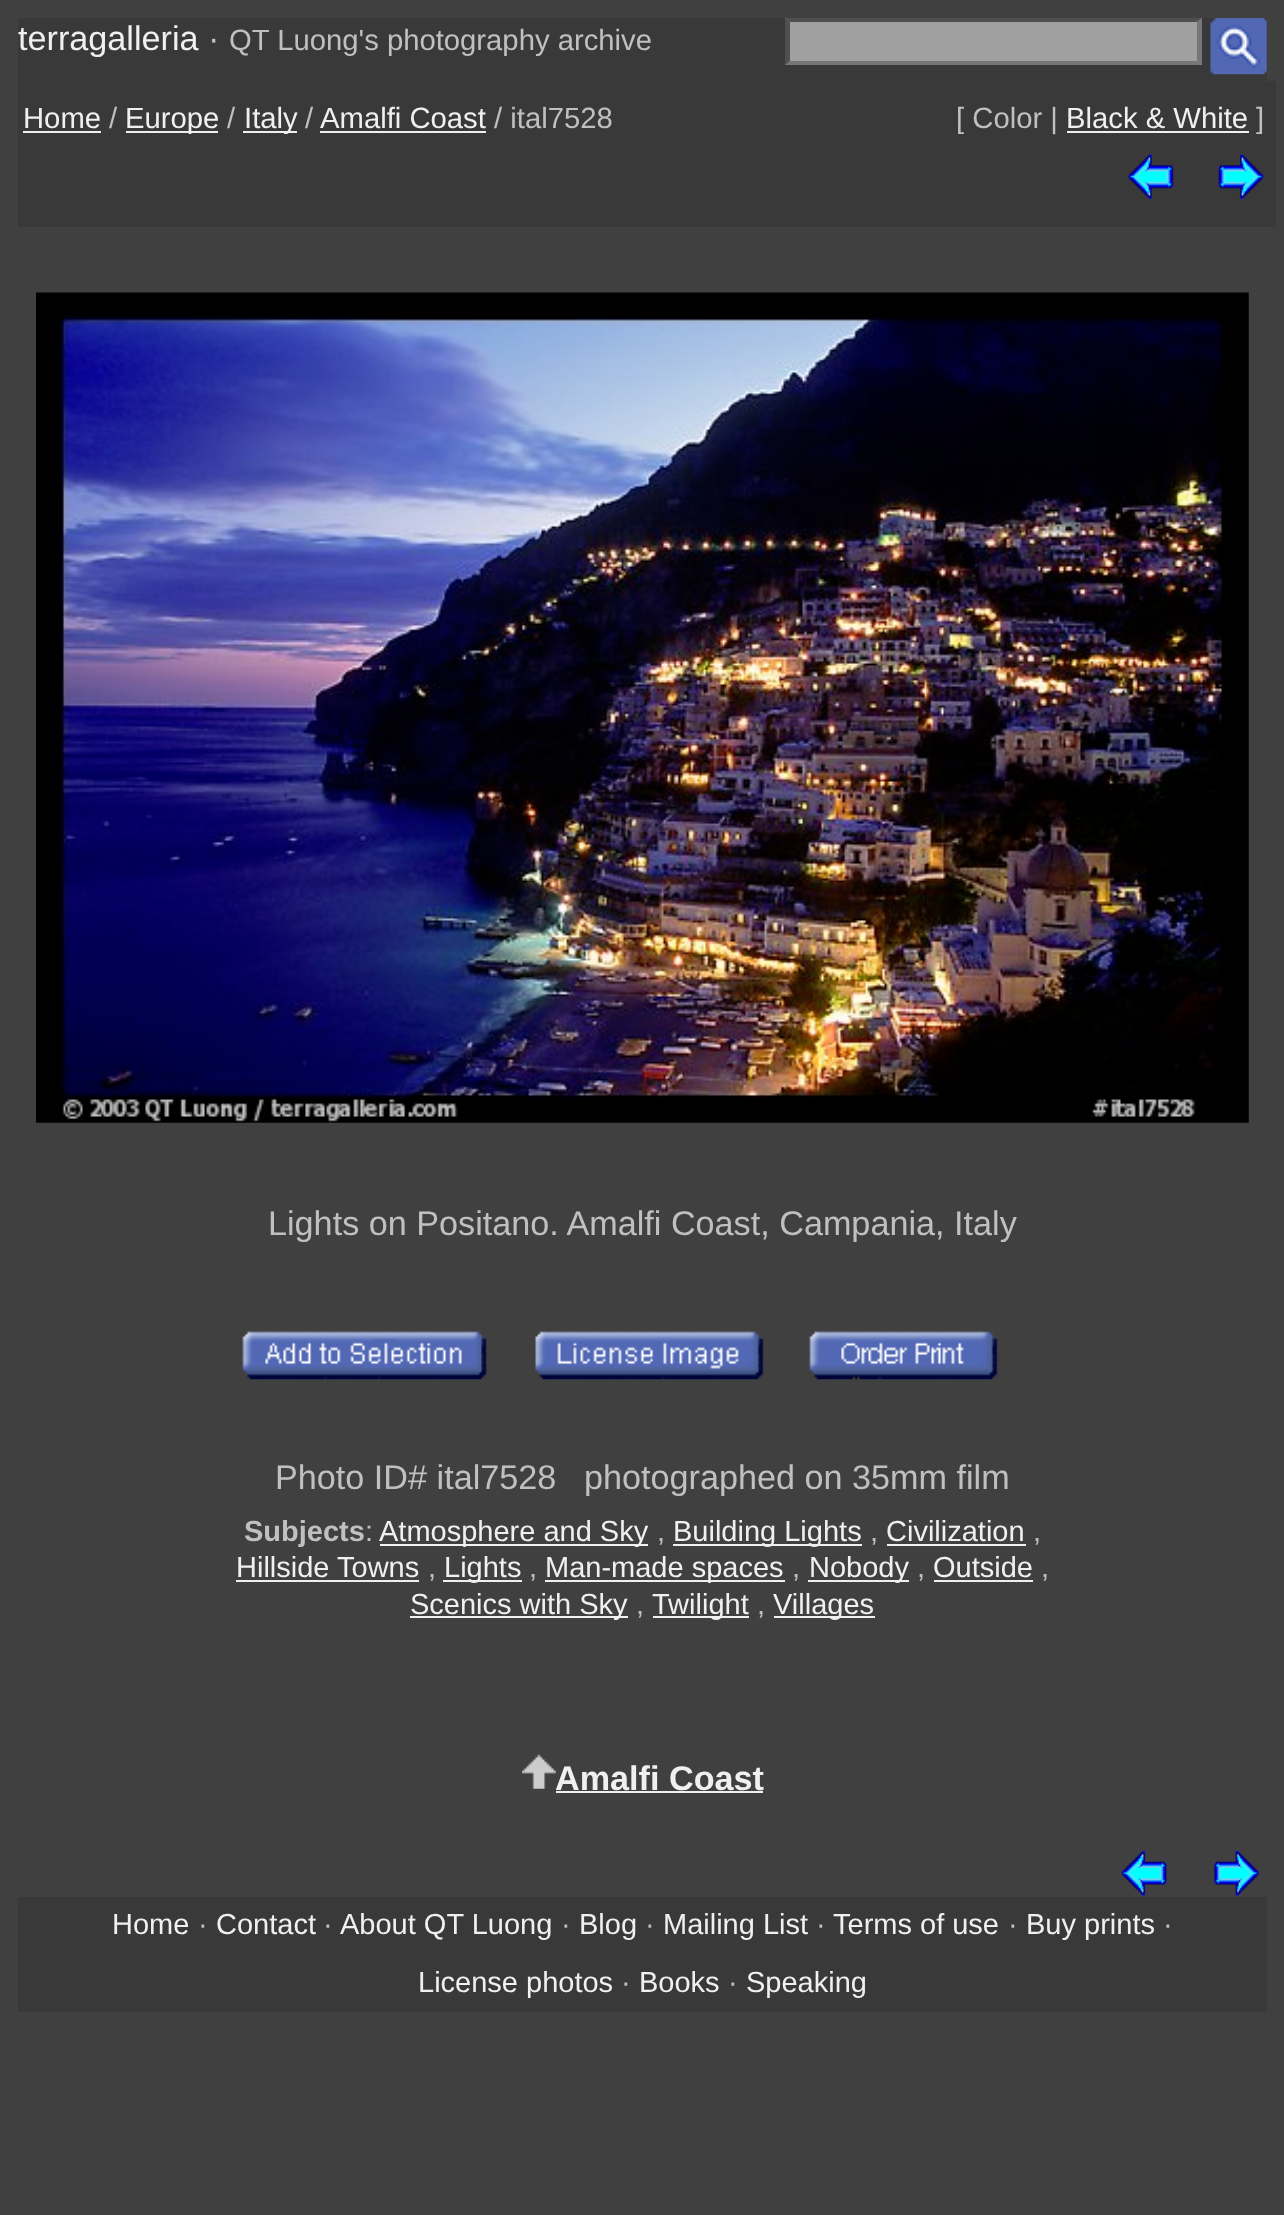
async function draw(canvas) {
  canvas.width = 1284
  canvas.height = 2215
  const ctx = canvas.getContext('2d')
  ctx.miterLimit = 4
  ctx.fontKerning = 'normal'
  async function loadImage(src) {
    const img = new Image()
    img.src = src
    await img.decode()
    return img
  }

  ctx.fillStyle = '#404040'
  ctx.fillRect(0, 0, 1284, 2215)
  ctx.fillStyle = '#393939'
  ctx.fillRect(18, 18, 1249, 63)
  ctx.font = '34.2px Liberation Sans'
  ctx.fillStyle = '#f0f0f0'
  ctx.fillText('terragalleria', 18, 50)
  ctx.fillStyle = '#c0c0c0'
  ctx.fillText('·', 208, 50)
  ctx.font = '29.25px Liberation Sans'
  ctx.fillText('QT Luong\'s photography archive', 229, 50)
  ctx.fillStyle = '#a0a0a0'
  ctx.fillRect(785, 18, 417, 47)
  ctx.fillStyle = '#4f4f4f'
  ctx.beginPath()
  ctx.moveTo(785, 18)
  ctx.lineTo(1202, 18)
  ctx.lineTo(1197, 22)
  ctx.lineTo(790, 22)
  ctx.closePath()
  ctx.fill()
  ctx.fillStyle = '#767676'
  ctx.beginPath()
  ctx.moveTo(1202, 18)
  ctx.lineTo(1202, 65)
  ctx.lineTo(1197, 61)
  ctx.lineTo(1197, 22)
  ctx.closePath()
  ctx.fill()
  ctx.beginPath()
  ctx.moveTo(1202, 65)
  ctx.lineTo(785, 65)
  ctx.lineTo(790, 61)
  ctx.lineTo(1197, 61)
  ctx.closePath()
  ctx.fill()
  ctx.fillStyle = '#4f4f4f'
  ctx.beginPath()
  ctx.moveTo(785, 65)
  ctx.lineTo(785, 18)
  ctx.lineTo(790, 22)
  ctx.lineTo(790, 61)
  ctx.closePath()
  ctx.fill()
  ctx.drawImage(await loadImage('image0.png'), 1210, 18, 57, 57)
  ctx.fillStyle = '#393939'
  ctx.fillRect(18, 81, 1258, 146)
  ctx.fillStyle = '#f0f0f0'
  ctx.fillText('Home', 23, 128)
  ctx.fillRect(23, 131, 78, 2)
  ctx.fillStyle = '#c0c0c0'
  ctx.fillText('/', 109, 128)
  ctx.fillStyle = '#f0f0f0'
  ctx.fillRect(126, 131, 92, 2)
  ctx.fillText('Europe', 125, 128)
  ctx.fillStyle = '#c0c0c0'
  ctx.fillText('/', 227, 128)
  ctx.fillStyle = '#f0f0f0'
  ctx.fillRect(243, 131, 54, 2)
  ctx.fillText('Italy', 244, 128)
  ctx.fillStyle = '#c0c0c0'
  ctx.fillText('/', 305, 128)
  ctx.fillStyle = '#f0f0f0'
  ctx.fillText('Amalfi Coast', 320, 128)
  ctx.fillRect(320, 131, 166, 2)
  ctx.fillStyle = '#c0c0c0'
  ctx.fillText('/ ital7528', 494, 128)
  ctx.fillText('[ Color |', 956, 128)
  ctx.fillStyle = '#f0f0f0'
  ctx.fillText('Black & White', 1066, 128)
  ctx.fillRect(1067, 131, 182, 2)
  ctx.fillStyle = '#c0c0c0'
  ctx.fillText(']', 1256, 128)
  ctx.drawImage(await loadImage('image1.png'), 1128, 154, 46, 45)
  ctx.drawImage(await loadImage('image2.png'), 1218, 154, 46, 45)
  ctx.drawImage(await loadImage('image3.png'), 36, 292, 1213, 831)
  ctx.font = '34.2px Liberation Sans'
  ctx.fillText('Lights on Positano. Amalfi Coast, Campania, Italy', 268, 1235)
  ctx.drawImage(await loadImage('image4.png'), 242, 1331, 245, 49)
  ctx.drawImage(await loadImage('image5.png'), 535, 1331, 229, 49)
  ctx.drawImage(await loadImage('image6.png'), 809, 1331, 189, 49)
  ctx.fillText('Photo ID# ital7528', 275, 1489)
  ctx.fillText('photographed on 35mm film', 584, 1489)
  ctx.font = 'bold 29px Liberation Sans'
  ctx.fillText('Subjects', 244, 1541)
  ctx.font = '29px Liberation Sans'
  ctx.fillText(':', 365, 1541)
  ctx.fillStyle = '#f0f0f0'
  ctx.fillRect(380, 1544, 268, 2)
  ctx.fillText('Atmosphere and Sky', 379, 1541)
  ctx.fillStyle = '#c0c0c0'
  ctx.fillText(',', 657, 1541)
  ctx.fillStyle = '#f0f0f0'
  ctx.fillRect(673, 1544, 189, 2)
  ctx.fillText('Building Lights', 673, 1541)
  ctx.fillStyle = '#c0c0c0'
  ctx.fillText(',', 870, 1541)
  ctx.fillStyle = '#f0f0f0'
  ctx.fillText('Civilization', 886, 1541)
  ctx.fillRect(887, 1544, 139, 2)
  ctx.fillStyle = '#c0c0c0'
  ctx.fillText(',', 1033, 1541)
  ctx.fillStyle = '#f0f0f0'
  ctx.fillText('Hillside Towns', 236, 1577)
  ctx.fillRect(236, 1580, 183, 2)
  ctx.fillStyle = '#c0c0c0'
  ctx.fillText(',', 428, 1577)
  ctx.fillStyle = '#f0f0f0'
  ctx.fillRect(443, 1580, 79, 2)
  ctx.fillText('Lights', 444, 1577)
  ctx.fillStyle = '#c0c0c0'
  ctx.fillText(',', 529, 1577)
  ctx.fillStyle = '#f0f0f0'
  ctx.fillRect(545, 1580, 240, 2)
  ctx.fillText('Man-made spaces', 545, 1577)
  ctx.fillStyle = '#c0c0c0'
  ctx.fillText(',', 792, 1577)
  ctx.fillStyle = '#f0f0f0'
  ctx.fillRect(808, 1580, 101, 2)
  ctx.fillText('Nobody', 809, 1577)
  ctx.fillStyle = '#c0c0c0'
  ctx.fillText(',', 917, 1577)
  ctx.fillStyle = '#f0f0f0'
  ctx.fillText('Outside', 933, 1577)
  ctx.fillRect(934, 1580, 99, 2)
  ctx.fillStyle = '#c0c0c0'
  ctx.fillText(',', 1041, 1577)
  ctx.fillStyle = '#f0f0f0'
  ctx.fillRect(410, 1616, 218, 2)
  ctx.fillText('Scenics with Sky', 410, 1614)
  ctx.fillStyle = '#c0c0c0'
  ctx.fillText(',', 636, 1614)
  ctx.fillStyle = '#f0f0f0'
  ctx.fillRect(653, 1616, 96, 2)
  ctx.fillText('Twilight', 652, 1614)
  ctx.fillStyle = '#c0c0c0'
  ctx.fillText(',', 757, 1614)
  ctx.fillStyle = '#f0f0f0'
  ctx.fillRect(774, 1616, 101, 2)
  ctx.fillText('Villages', 773, 1614)
  ctx.drawImage(await loadImage('image7.png'), 522, 1754, 34, 35)
  ctx.font = 'bold 34.2px Liberation Sans'
  ctx.fillText('Amalfi Coast', 555, 1790)
  ctx.fillRect(556, 1791, 207, 2)
  ctx.drawImage(await loadImage('image8.png'), 1121, 1850, 46, 46)
  ctx.drawImage(await loadImage('image9.png'), 1214, 1850, 45, 46)
  ctx.fillStyle = '#393939'
  ctx.fillRect(18, 1897, 1249, 115)
  ctx.font = '29px Liberation Sans'
  ctx.fillStyle = '#f0f0f0'
  ctx.fillText('Home', 112, 1934)
  ctx.fillStyle = '#c0c0c0'
  ctx.fillText('·', 198, 1934)
  ctx.fillStyle = '#f0f0f0'
  ctx.fillText('Contact', 216, 1934)
  ctx.fillStyle = '#c0c0c0'
  ctx.fillText('·', 323, 1934)
  ctx.fillStyle = '#f0f0f0'
  ctx.fillText('About QT Luong', 340, 1934)
  ctx.fillStyle = '#c0c0c0'
  ctx.fillText('·', 561, 1934)
  ctx.fillStyle = '#f0f0f0'
  ctx.fillText('Blog', 579, 1934)
  ctx.fillStyle = '#c0c0c0'
  ctx.fillText('·', 645, 1934)
  ctx.fillStyle = '#f0f0f0'
  ctx.fillText('Mailing List', 663, 1934)
  ctx.fillStyle = '#c0c0c0'
  ctx.fillText('·', 816, 1934)
  ctx.fillStyle = '#f0f0f0'
  ctx.fillText('Terms of use', 833, 1934)
  ctx.fillStyle = '#c0c0c0'
  ctx.fillText('·', 1008, 1934)
  ctx.fillStyle = '#f0f0f0'
  ctx.fillText('Buy prints', 1026, 1934)
  ctx.fillStyle = '#c0c0c0'
  ctx.fillText('·', 1163, 1934)
  ctx.fillStyle = '#f0f0f0'
  ctx.fillText('License photos', 418, 1992)
  ctx.fillStyle = '#c0c0c0'
  ctx.fillText('·', 621, 1992)
  ctx.fillStyle = '#f0f0f0'
  ctx.fillText('Books', 639, 1992)
  ctx.fillStyle = '#c0c0c0'
  ctx.fillText('·', 728, 1992)
  ctx.fillStyle = '#f0f0f0'
  ctx.fillText('Speaking', 746, 1992)
}

draw(document.querySelector('canvas'))
